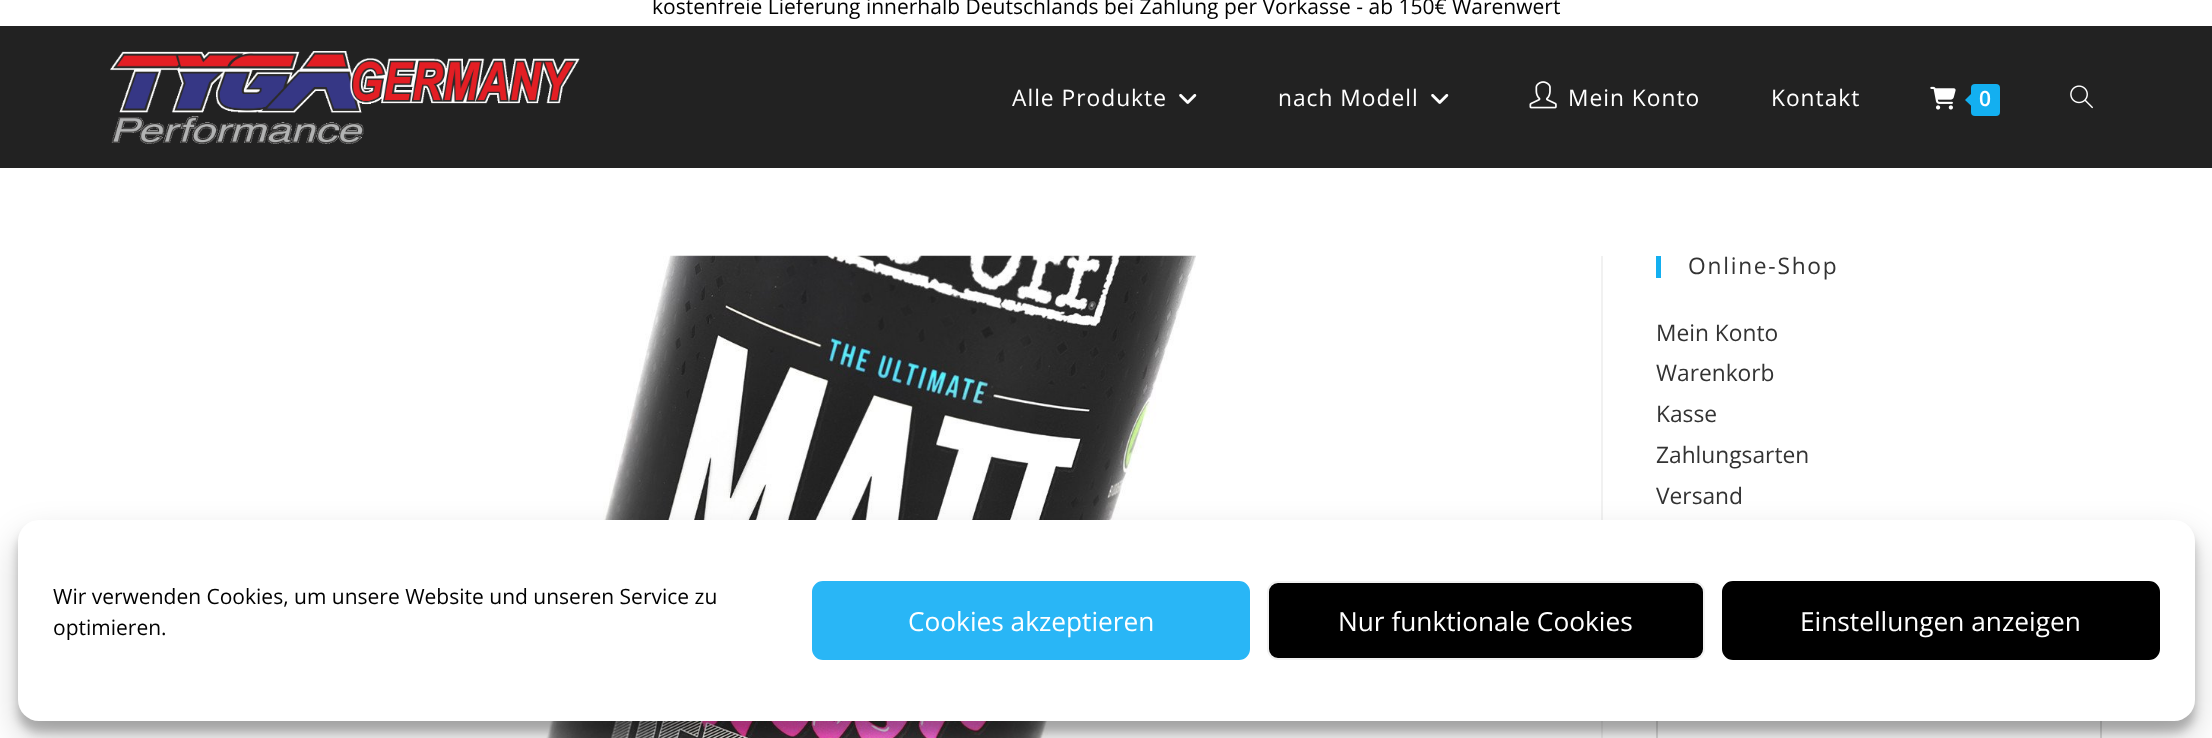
async function draw(canvas) {
  canvas.width = 2212
  canvas.height = 738
  const ctx = canvas.getContext('2d')
  ctx.miterLimit = 4
  ctx.fontKerning = 'normal'
  async function loadImage(src) {
    const img = new Image()
    img.src = src
    await img.decode()
    return img
  }

  ctx.fillStyle = '#fff'
  ctx.fillRect(0, 0, 2212, 738)
  ctx.font = '21px Open Sans'
  ctx.fillStyle = '#000'
  ctx.fillText('kostenfreie Lieferung innerhalb Deutschlands bei Zahlung per Vorkasse - ab 150€ Warenwert', 652, 14)
  ctx.fillStyle = '#222'
  ctx.fillRect(0, 26, 2212, 142)
  ctx.drawImage(await loadImage('image0.png'), 110, 51, 470, 93)
  ctx.letterSpacing = '1px'
  ctx.font = '22.75px Open Sans'
  ctx.fillStyle = '#fff'
  ctx.fillText('Alle Produkte', 1012, 106)
  ctx.drawImage(await loadImage('image1.png'), 1179, 94, 18, 10)
  ctx.fillText('nach Modell', 1278, 106)
  ctx.drawImage(await loadImage('image1.png'), 1431, 94, 18, 10)
  ctx.drawImage(await loadImage('image2.png'), 1529, 81, 28, 28)
  ctx.fillText('Mein Konto', 1568, 106)
  ctx.fillText('Kontakt', 1771, 106)
  ctx.drawImage(await loadImage('image3.png'), 1930, 86, 26, 24)
  ctx.fillStyle = '#13aff0'
  ctx.beginPath()
  ctx.roundRect(1971, 84, 29, 32, 4)
  ctx.fill()
  ctx.beginPath()
  ctx.moveTo(1974, 91)
  ctx.lineTo(1974, 108.5)
  ctx.lineTo(1965, 100)
  ctx.closePath()
  ctx.fill()
  ctx.letterSpacing = '0px'
  ctx.font = '600 21px Open Sans'
  ctx.fillStyle = '#fff'
  ctx.fillText('0', 1979, 106)
  ctx.drawImage(await loadImage('image4.png'), 2070, 85, 23, 24)
  ctx.fillStyle = '#f1f1f1'
  ctx.fillRect(1601, 256, 2, 482)
  ctx.drawImage(await loadImage('image5.png'), 546, 255, 650, 483)
  ctx.fillStyle = '#13aff0'
  ctx.fillRect(1656, 256, 5, 22)
  ctx.letterSpacing = '1.75px'
  ctx.font = '22.75px Open Sans'
  ctx.fillStyle = '#333'
  ctx.fillText('Online-Shop', 1688, 274)
  ctx.letterSpacing = '0px'
  ctx.fillText('Mein Konto', 1656, 341)
  ctx.fillText('Warenkorb', 1656, 381)
  ctx.fillText('Kasse', 1656, 422)
  ctx.fillText('Zahlungsarten', 1656, 463)
  ctx.fillText('Versand', 1656, 504)
  ctx.strokeStyle = '#ddd'
  ctx.lineWidth = 2
  ctx.strokeRect(1657, 687, 444, 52)
  ctx.fillStyle = '#0000003b'
  ctx.filter = 'blur(5px)'
  ctx.beginPath()
  ctx.roundRect(18, 530, 2177, 202, 21)
  ctx.fill()
  ctx.filter = 'none'
  ctx.fillStyle = '#00000030'
  ctx.filter = 'blur(17.5px)'
  ctx.beginPath()
  ctx.roundRect(18, 537, 2177, 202, 21)
  ctx.fill()
  ctx.filter = 'none'
  ctx.fillStyle = '#fff'
  ctx.beginPath()
  ctx.roundRect(18, 520, 2177, 201, 21)
  ctx.fill()
  ctx.font = '21px Open Sans'
  ctx.fillStyle = '#000'
  ctx.fillText('Wir verwenden Cookies, um unsere Website und unseren Service zu', 53, 604)
  ctx.fillText('optimieren.', 53, 635)
  ctx.fillStyle = '#29b6f6'
  ctx.beginPath()
  ctx.roundRect(813, 582, 436, 77, 10)
  ctx.fill()
  ctx.strokeStyle = '#29b6f6'
  ctx.stroke()
  ctx.font = '26.25px Open Sans'
  ctx.fillStyle = '#fff'
  ctx.fillText('Cookies akzeptieren', 908, 631)
  ctx.fillStyle = '#000'
  ctx.beginPath()
  ctx.roundRect(1268, 582, 436, 77, 10)
  ctx.fill()
  ctx.strokeStyle = '#f1f1f1'
  ctx.stroke()
  ctx.fillStyle = '#fff'
  ctx.fillText('Nur funktionale Cookies', 1338, 631)
  ctx.fillStyle = '#000'
  ctx.beginPath()
  ctx.roundRect(1723, 582, 436, 77, 10)
  ctx.fill()
  ctx.strokeStyle = '#000'
  ctx.stroke()
  ctx.fillStyle = '#fff'
  ctx.fillText('Einstellungen anzeigen', 1800, 631)
}

draw(document.querySelector('canvas'))
